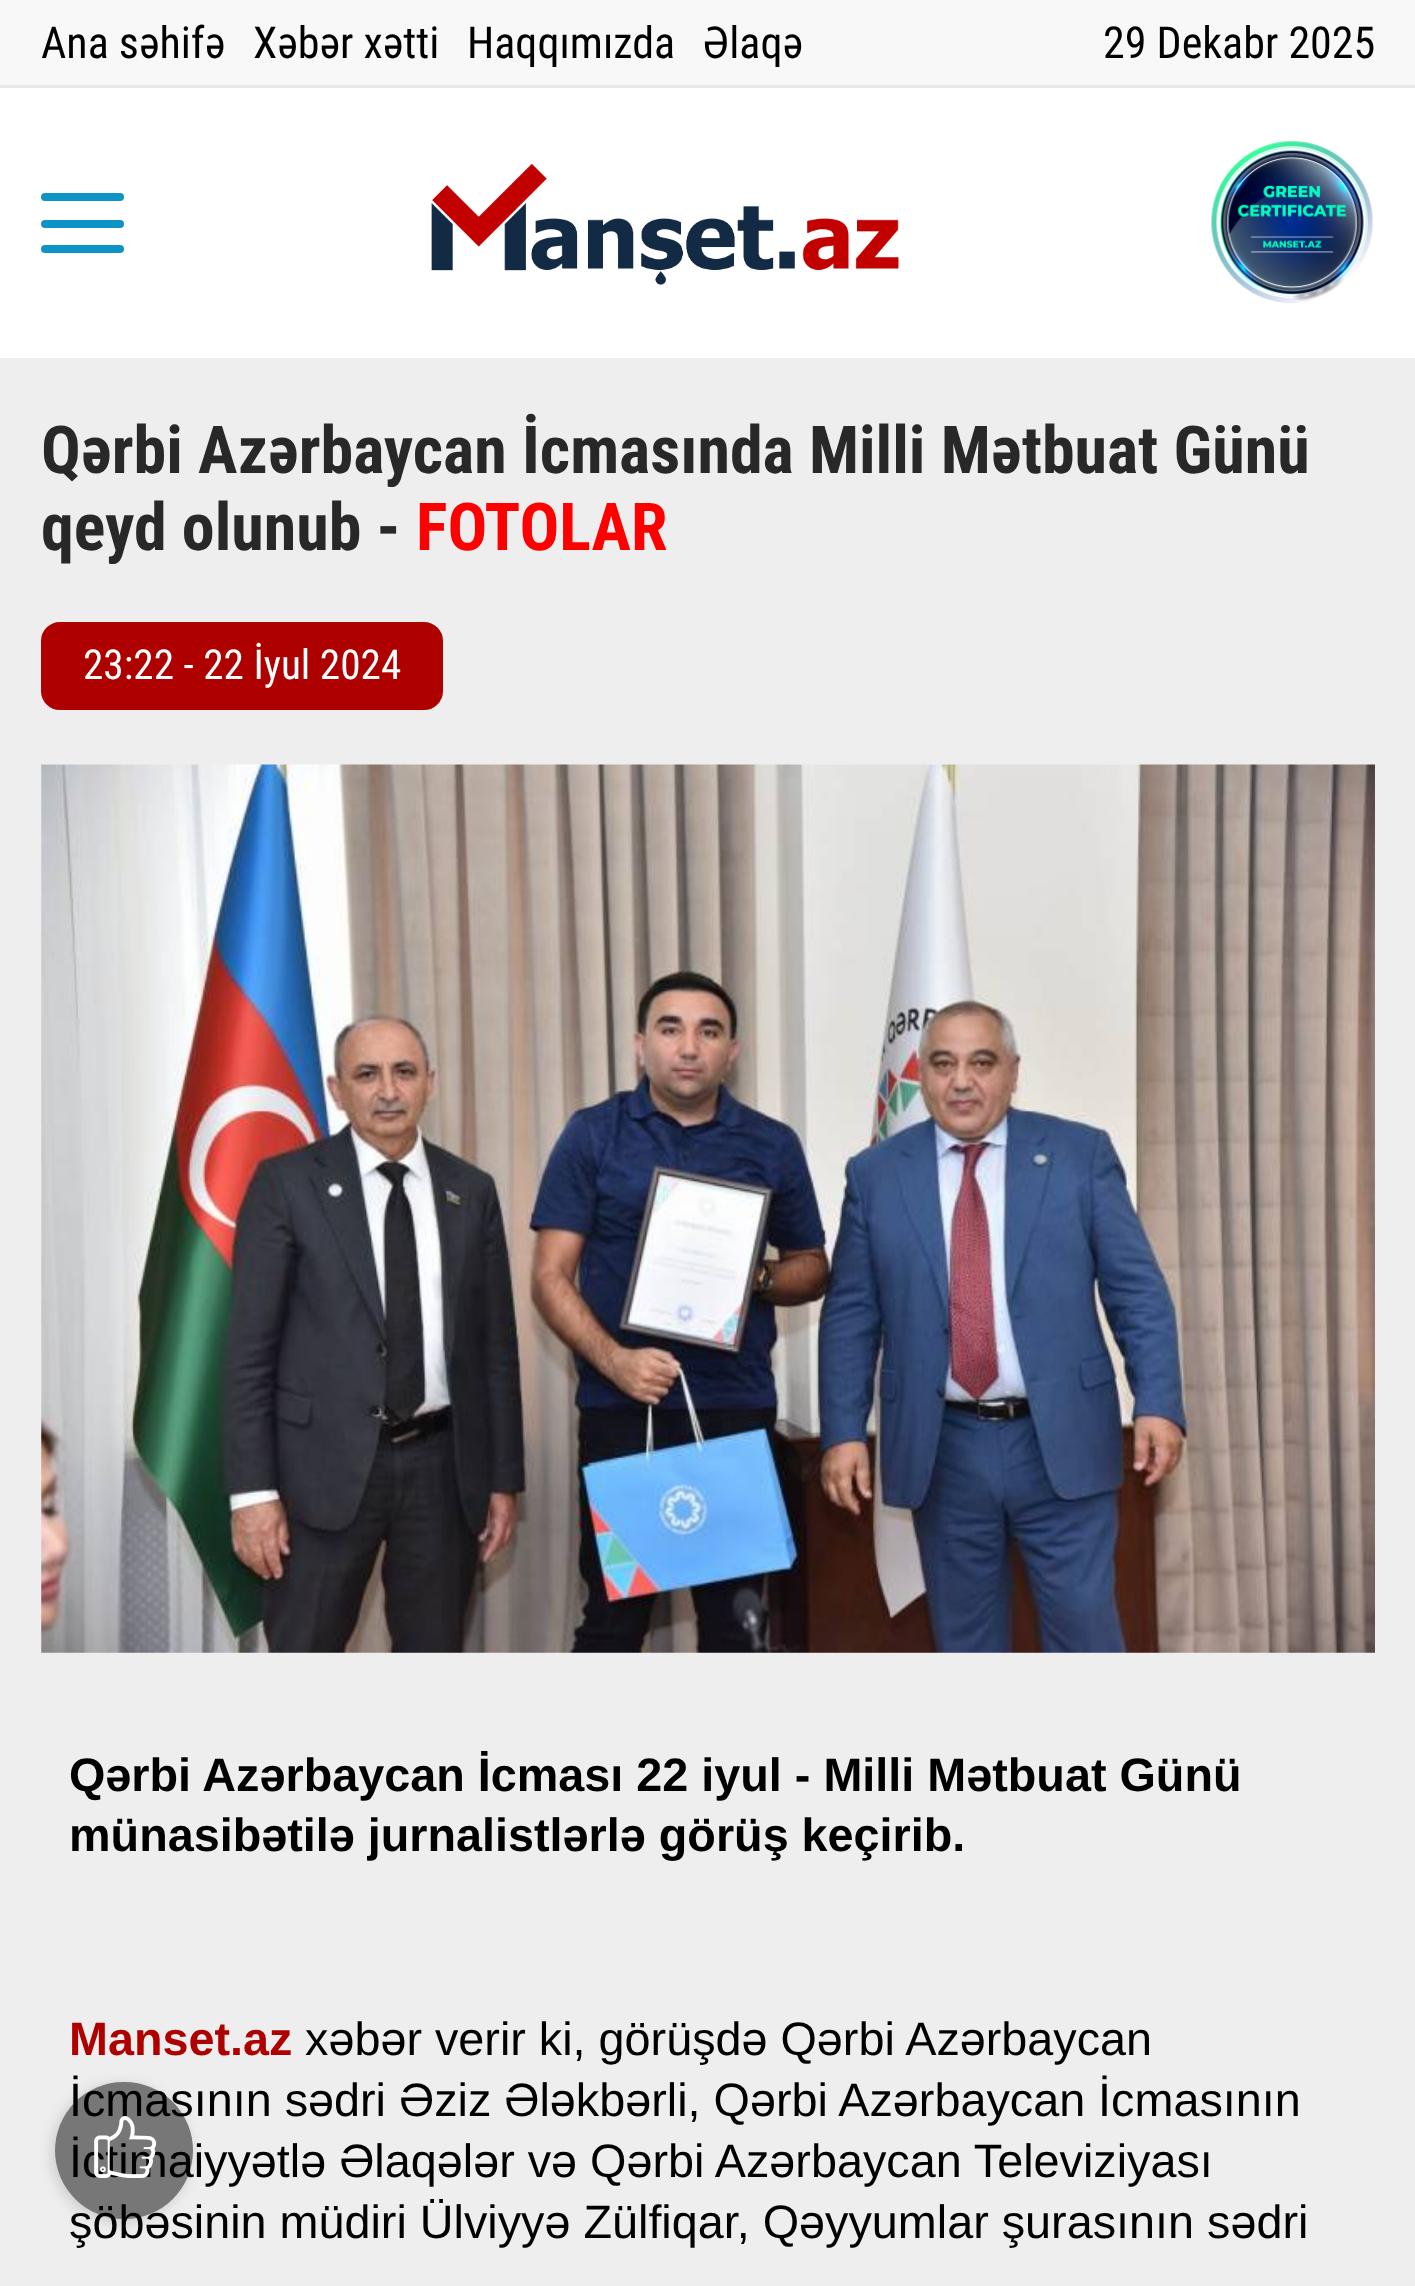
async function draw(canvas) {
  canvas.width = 1415
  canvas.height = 2286
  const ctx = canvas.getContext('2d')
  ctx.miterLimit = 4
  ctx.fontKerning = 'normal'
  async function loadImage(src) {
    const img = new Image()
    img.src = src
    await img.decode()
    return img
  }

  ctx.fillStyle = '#fff'
  ctx.fillRect(0, 0, 1415, 2286)
  ctx.fillStyle = '#f8f8f8'
  ctx.fillRect(0, 0, 1415, 85)
  ctx.fillStyle = '#e7e7e7'
  ctx.fillRect(0, 85, 1415, 3)
  ctx.font = '44px Roboto Condensed'
  ctx.fillStyle = '#000'
  ctx.fillText('Ana səhifə', 41, 58)
  ctx.fillText('Xəbər xətti', 253, 58)
  ctx.fillText('Haqqımızda', 467, 58)
  ctx.fillText('Əlaqə', 703, 58)
  ctx.fillText('29 Dekabr 2025', 1103, 58)
  ctx.fillStyle = '#0e93c7'
  ctx.beginPath()
  ctx.roundRect(41, 193, 83, 8, 4)
  ctx.fill()
  ctx.beginPath()
  ctx.roundRect(41, 220, 83, 8, 4)
  ctx.fill()
  ctx.beginPath()
  ctx.roundRect(41, 245, 83, 8, 4)
  ctx.fill()
  ctx.drawImage(await loadImage('image0.png'), 431, 163, 468, 122)
  ctx.drawImage(await loadImage('image1.png'), 1211, 141, 162, 162)
  ctx.fillStyle = '#eee'
  ctx.fillRect(0, 358, 1415, 1928)
  ctx.font = 'bold 66px Roboto Condensed'
  ctx.fillStyle = '#282828'
  ctx.fillText('Qərbi Azərbaycan İcmasında Milli Mətbuat Günü', 41, 473)
  ctx.fillText('qeyd olunub -', 41, 550)
  ctx.fillStyle = '#f00'
  ctx.fillText('FOTOLAR', 416, 550)
  ctx.fillStyle = '#af0000'
  ctx.beginPath()
  ctx.roundRect(42.5, 623.5, 399, 85, 17.5)
  ctx.fill()
  ctx.strokeStyle = '#af0000'
  ctx.lineWidth = 3
  ctx.stroke()
  ctx.font = '41.25px Roboto Condensed'
  ctx.fillStyle = '#fff'
  ctx.fillText('23:22 - 22 İyul 2024', 83, 679)
  ctx.drawImage(await loadImage('image2.png'), 41, 764, 1334, 889)
  ctx.font = 'bold 46.75px Liberation Sans'
  ctx.fillStyle = '#000'
  ctx.fillText('Qərbi Azərbaycan İcması 22 iyul - Milli Mətbuat Günü', 69, 1791)
  ctx.fillText('münasibətilə jurnalistlərlə görüş keçirib.', 69, 1851)
  ctx.fillStyle = '#af0000'
  ctx.fillText('Manset.az', 69, 2055)
  ctx.font = '46.75px Liberation Sans'
  ctx.fillStyle = '#000'
  ctx.fillText('xəbər verir ki, görüşdə Qərbi Azərbaycan', 305, 2055)
  ctx.fillText('İcmasının sədri Əziz Ələkbərli, Qərbi Azərbaycan İcmasının', 69, 2116)
  ctx.fillText('İctimaiyyətlə Əlaqələr və Qərbi Azərbaycan Televiziyası', 69, 2177)
  ctx.fillText('şöbəsinin müdiri Ülviyyə Zülfiqar, Qəyyumlar şurasının sədri', 69, 2238)
  ctx.save()
  ctx.beginPath()
  ctx.moveTo(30, 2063)
  ctx.lineTo(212, 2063)
  ctx.lineTo(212, 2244)
  ctx.lineTo(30, 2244)
  ctx.closePath()
  ctx.moveTo(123.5, 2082)
  ctx.lineTo(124.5, 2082)
  ctx.bezierCurveTo(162.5, 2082, 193, 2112.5, 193, 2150.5)
  ctx.bezierCurveTo(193, 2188.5, 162.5, 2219, 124.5, 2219)
  ctx.lineTo(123.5, 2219)
  ctx.bezierCurveTo(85.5, 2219, 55, 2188.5, 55, 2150.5)
  ctx.bezierCurveTo(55, 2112.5, 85.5, 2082, 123.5, 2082)
  ctx.closePath()
  ctx.clip('evenodd')
  ctx.fillStyle = '#00000026'
  ctx.filter = 'blur(7px)'
  ctx.beginPath()
  ctx.roundRect(52, 2085, 138, 137, 68.5)
  ctx.fill()
  ctx.filter = 'none'
  ctx.restore()
  ctx.fillStyle = '#00000080'
  ctx.beginPath()
  ctx.roundRect(55, 2082, 138, 137, 68.5)
  ctx.fill()
  ctx.drawImage(await loadImage('image3.png'), 94, 2116, 63, 62)
}

draw(document.querySelector('canvas'))
